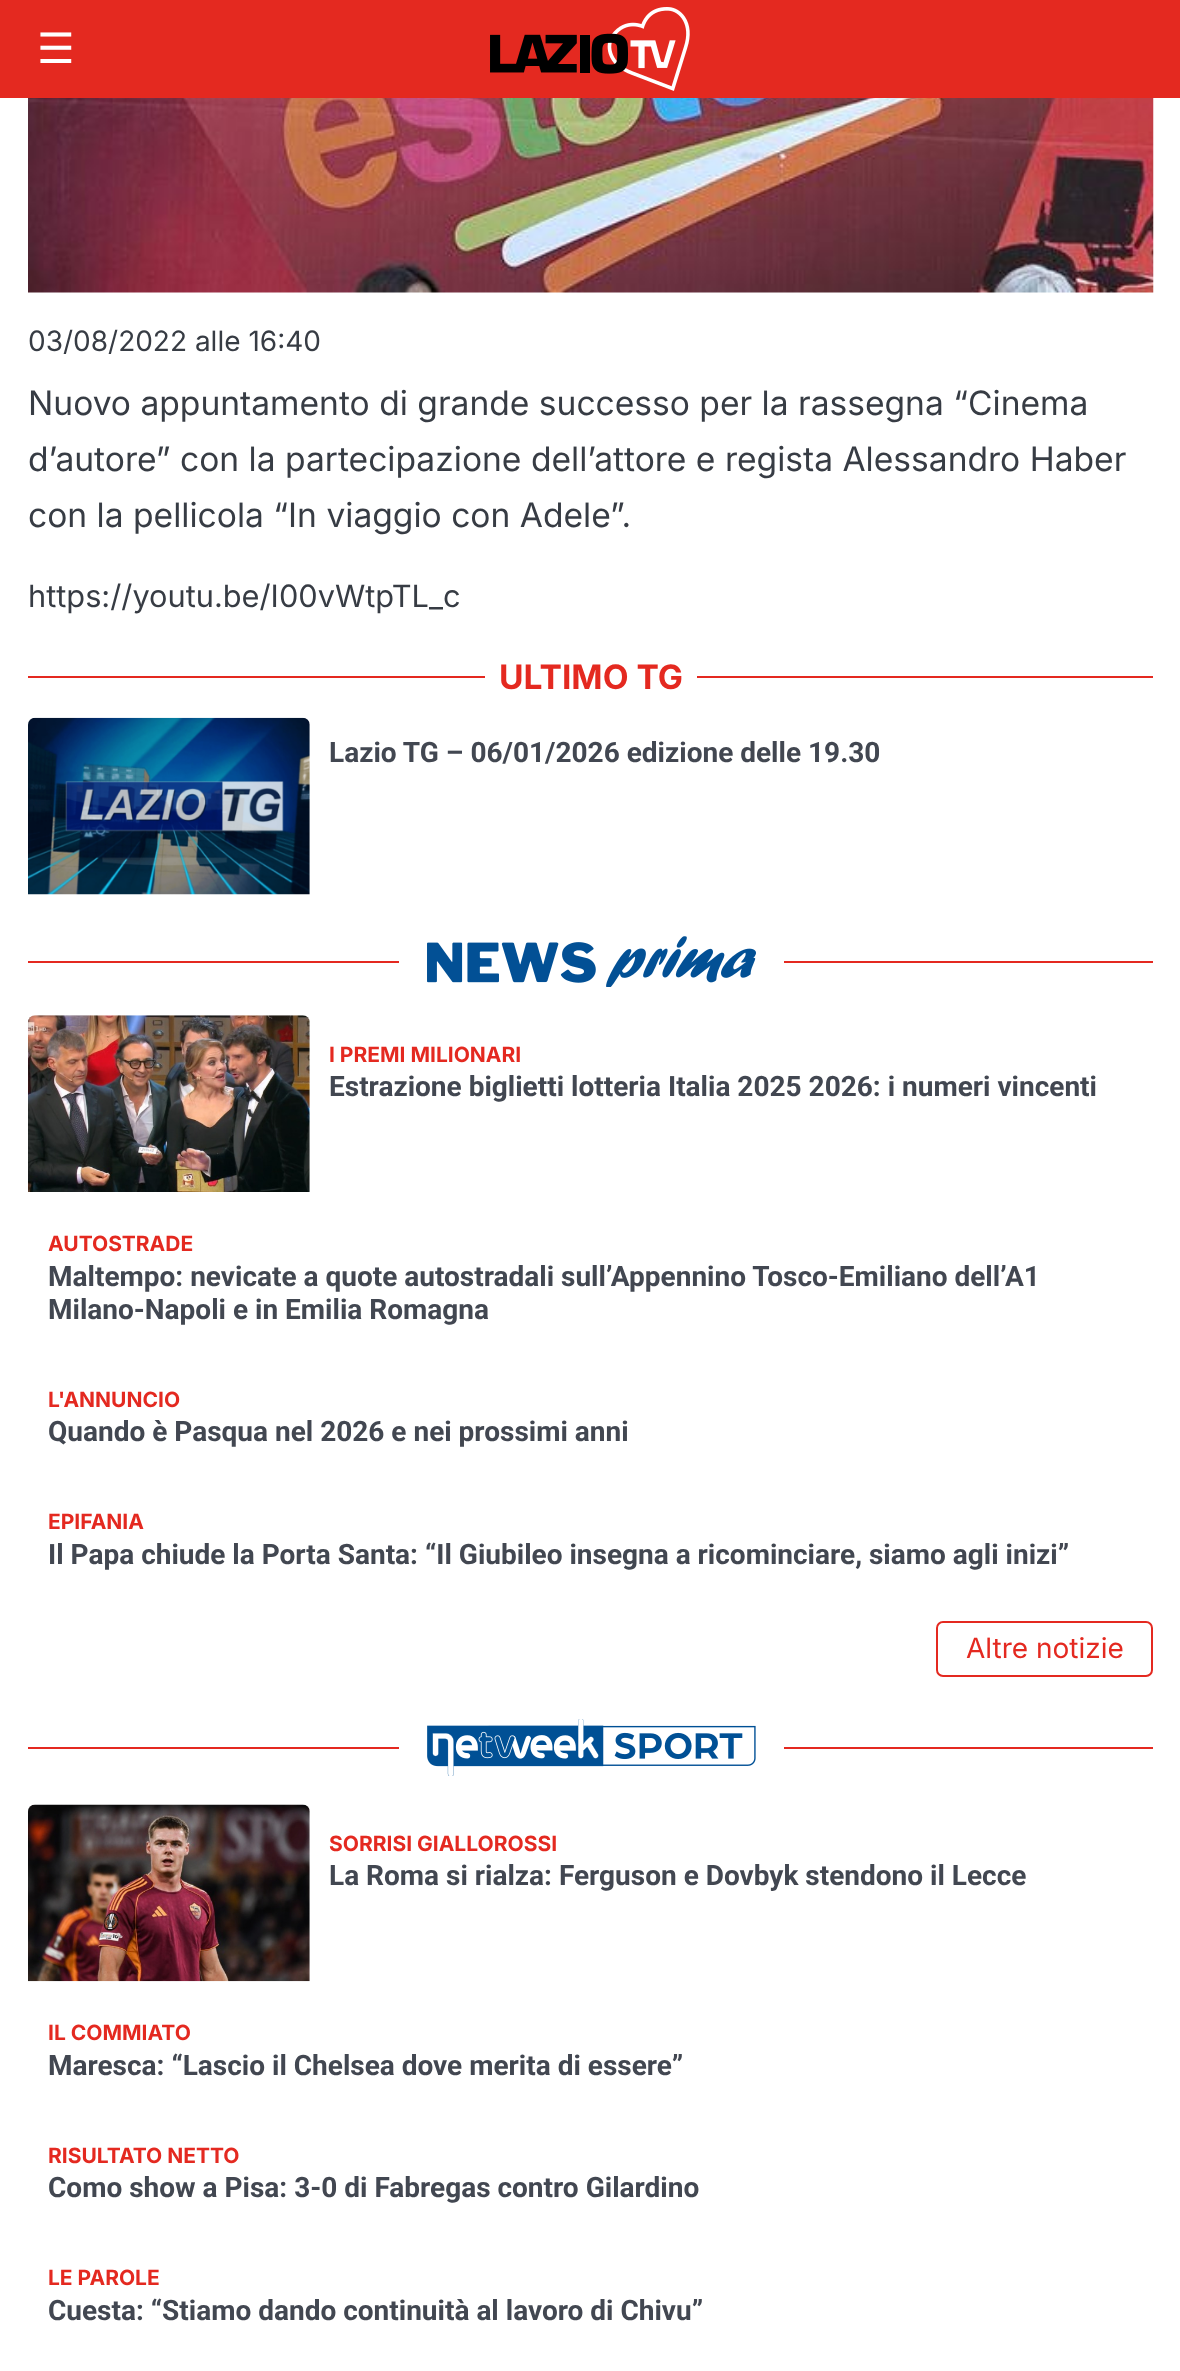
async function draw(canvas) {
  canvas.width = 1180
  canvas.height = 2371
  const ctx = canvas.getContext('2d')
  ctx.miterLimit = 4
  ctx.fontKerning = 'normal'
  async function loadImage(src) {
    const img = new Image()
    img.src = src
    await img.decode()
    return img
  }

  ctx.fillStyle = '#fff'
  ctx.fillRect(0, 0, 1180, 2371)
  ctx.fillStyle = '#e42920'
  ctx.fillRect(0, 0, 1180, 98)
  ctx.font = '42px DejaVu Sans'
  ctx.fillStyle = '#fff'
  ctx.fillText('☰', 37, 63)
  ctx.drawImage(await loadImage('image0.png'), 490, 7, 200, 84)
  ctx.drawImage(await loadImage('image1.png'), 28, 98, 1126, 195)
  ctx.font = '28px Inter'
  ctx.fillStyle = '#373c44'
  ctx.fillText('03/08/2022 alle 16:40', 28, 351)
  ctx.font = '33.6px Inter'
  ctx.fillText('Nuovo appuntamento di grande successo per la rassegna “Cinema', 28, 415)
  ctx.fillText('d’autore” con la partecipazione dell’attore e regista Alessandro Haber', 28, 471)
  ctx.fillText('con la pellicola “In viaggio con Adele”.', 28, 527)
  ctx.font = '30.75px Inter'
  ctx.fillText('https://youtu.be/I00vWtpTL_c', 28, 607)
  ctx.fillStyle = '#e42920'
  ctx.fillRect(28, 676, 1125, 2)
  ctx.fillStyle = '#fff'
  ctx.fillRect(485, 676, 212, 2)
  ctx.font = 'bold 33.6px Inter'
  ctx.fillStyle = '#e42920'
  ctx.fillText('ULTIMO TG', 499, 689)
  ctx.drawImage(await loadImage('image2.png'), 28, 717, 282, 178)
  ctx.font = 'bold 28px Roboto'
  ctx.fillStyle = '#424751'
  ctx.fillText('Lazio TG – 06/01/2026 edizione delle 19.30', 329, 762)
  ctx.fillStyle = '#e42920'
  ctx.fillRect(28, 961, 1125, 2)
  ctx.fillStyle = '#fff'
  ctx.fillRect(399, 961, 385, 2)
  ctx.drawImage(await loadImage('image3.png'), 427, 936, 329, 51)
  ctx.drawImage(await loadImage('image4.png'), 28, 1015, 282, 177)
  ctx.font = 'bold 21px Inter'
  ctx.fillStyle = '#e42920'
  ctx.fillText('I PREMI MILIONARI', 329, 1062)
  ctx.font = 'bold 28px Roboto'
  ctx.fillStyle = '#424751'
  ctx.fillText('Estrazione biglietti lotteria Italia 2025 2026: i numeri vincenti', 329, 1096)
  ctx.font = 'bold 21px Inter'
  ctx.fillStyle = '#e42920'
  ctx.fillText('AUTOSTRADE', 48, 1251)
  ctx.font = 'bold 28px Roboto'
  ctx.fillStyle = '#424751'
  ctx.fillText('Maltempo: nevicate a quote autostradali sull’Appennino Tosco-Emiliano dell’A1', 48, 1286)
  ctx.fillText('Milano-Napoli e in Emilia Romagna', 48, 1319)
  ctx.font = 'bold 21px Inter'
  ctx.fillStyle = '#e42920'
  ctx.fillText('L\'ANNUNCIO', 48, 1407)
  ctx.font = 'bold 28px Roboto'
  ctx.fillStyle = '#424751'
  ctx.fillText('Quando è Pasqua nel 2026 e nei prossimi anni', 48, 1441)
  ctx.font = 'bold 21px Inter'
  ctx.fillStyle = '#e42920'
  ctx.fillText('EPIFANIA', 48, 1529)
  ctx.font = 'bold 28px Roboto'
  ctx.fillStyle = '#424751'
  ctx.fillText('Il Papa chiude la Porta Santa: “Il Giubileo insegna a ricominciare, siamo agli inizi”', 48, 1564)
  ctx.beginPath()
  ctx.roundRect(937, 1622, 215, 54, 6)
  ctx.strokeStyle = '#e42920'
  ctx.lineWidth = 2
  ctx.stroke()
  ctx.font = '28px Inter'
  ctx.fillStyle = '#e42920'
  ctx.fillText('Altre notizie', 966, 1658)
  ctx.fillRect(28, 1747, 1125, 2)
  ctx.fillStyle = '#fff'
  ctx.fillRect(399, 1747, 385, 2)
  ctx.drawImage(await loadImage('image5.png'), 427, 1719, 329, 57)
  ctx.drawImage(await loadImage('image6.png'), 28, 1804, 282, 178)
  ctx.font = 'bold 21px Inter'
  ctx.fillStyle = '#e42920'
  ctx.fillText('SORRISI GIALLOROSSI', 329, 1851)
  ctx.font = 'bold 28px Roboto'
  ctx.fillStyle = '#424751'
  ctx.fillText('La Roma si rialza: Ferguson e Dovbyk stendono il Lecce', 329, 1885)
  ctx.font = 'bold 21px Inter'
  ctx.fillStyle = '#e42920'
  ctx.fillText('IL COMMIATO', 48, 2040)
  ctx.font = 'bold 28px Roboto'
  ctx.fillStyle = '#424751'
  ctx.fillText('Maresca: “Lascio il Chelsea dove merita di essere”', 48, 2075)
  ctx.font = 'bold 21px Inter'
  ctx.fillStyle = '#e42920'
  ctx.fillText('RISULTATO NETTO', 48, 2163)
  ctx.font = 'bold 28px Roboto'
  ctx.fillStyle = '#424751'
  ctx.fillText('Como show a Pisa: 3-0 di Fabregas contro Gilardino', 48, 2197)
  ctx.font = 'bold 21px Inter'
  ctx.fillStyle = '#e42920'
  ctx.fillText('LE PAROLE', 48, 2285)
  ctx.font = 'bold 28px Roboto'
  ctx.fillStyle = '#424751'
  ctx.fillText('Cuesta: “Stiamo dando continuità al lavoro di Chivu”', 48, 2320)
}

draw(document.querySelector('canvas'))
